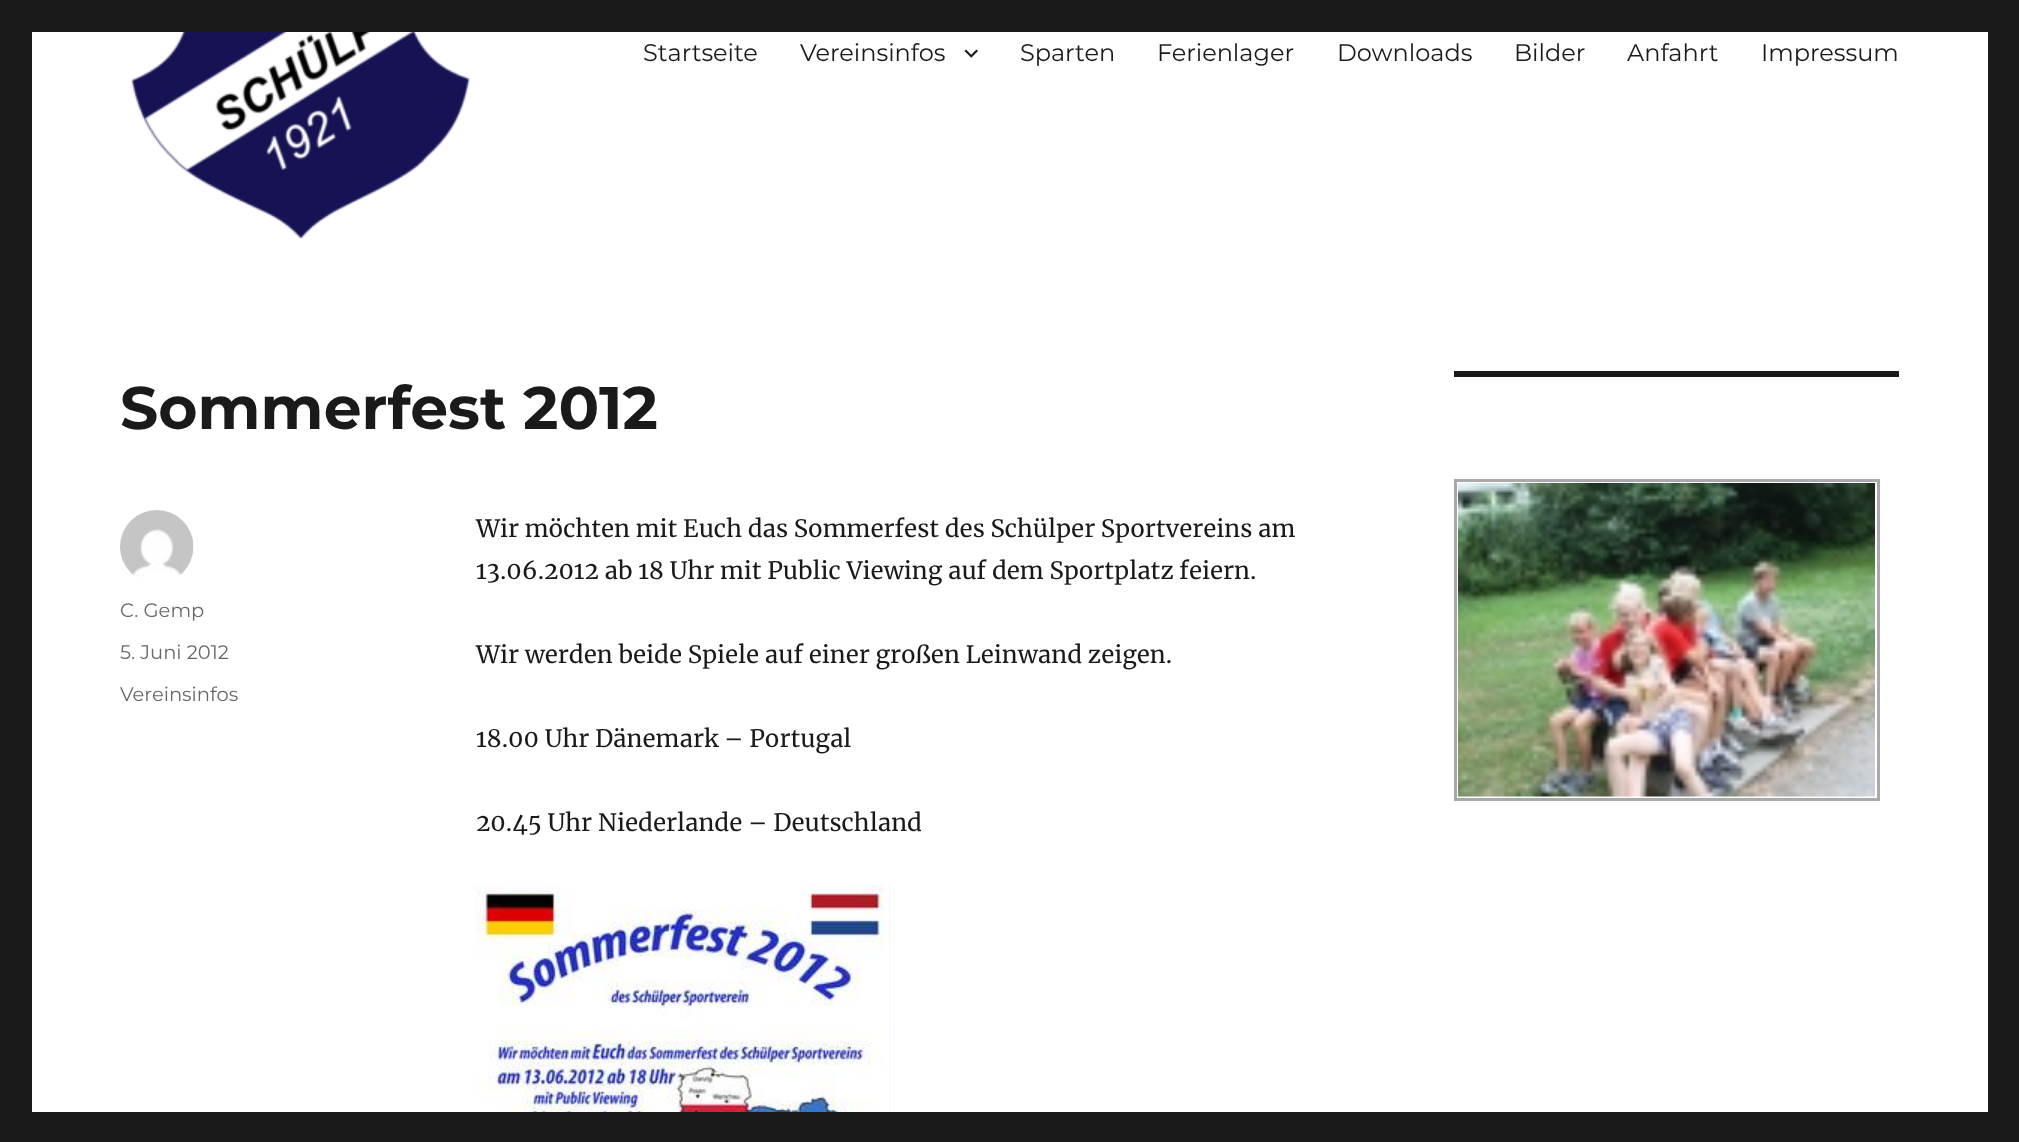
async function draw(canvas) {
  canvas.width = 2019
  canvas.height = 1142
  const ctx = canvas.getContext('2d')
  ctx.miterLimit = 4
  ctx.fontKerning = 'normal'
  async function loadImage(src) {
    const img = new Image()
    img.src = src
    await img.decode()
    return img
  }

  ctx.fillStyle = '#1a1a1a'
  ctx.fillRect(0, 0, 2019, 1142)
  ctx.fillStyle = '#fff'
  ctx.fillRect(32, 32, 1956, 1080)
  ctx.drawImage(await loadImage('image0.png'), 131, 32, 339, 207)
  ctx.font = '100 24px Montserrat'
  ctx.fillStyle = '#1a1a1a'
  ctx.fillText('Startseite', 643, 61)
  ctx.fillText('Vereinsinfos', 800, 61)
  ctx.drawImage(await loadImage('image1.png'), 964, 49, 14, 9)
  ctx.fillText('Sparten', 1020, 61)
  ctx.fillText('Ferienlager', 1157, 61)
  ctx.fillText('Downloads', 1337, 61)
  ctx.fillText('Bilder', 1514, 61)
  ctx.fillText('Anfahrt', 1627, 61)
  ctx.fillText('Impressum', 1761, 61)
  ctx.font = '100 60px "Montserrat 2"'
  ctx.fillText('Sommerfest 2012', 120, 429)
  ctx.drawImage(await loadImage('image2.png'), 120, 510, 74, 67)
  ctx.font = '100 19.5px Montserrat'
  ctx.fillStyle = '#686868'
  ctx.fillText('C. Gemp', 120, 617)
  ctx.fillText('5. Juni 2012', 120, 659)
  ctx.fillText('Vereinsinfos', 120, 701)
  ctx.font = '24px Merriweather'
  ctx.fillStyle = '#1a1a1a'
  ctx.fillText('Wir möchten mit Euch das Sommerfest des Schülper Sportvereins am', 476, 537)
  ctx.fillText('13.06.2012 ab 18 Uhr mit Public Viewing auf dem Sportplatz feiern.', 476, 579)
  ctx.fillText('Wir werden beide Spiele auf einer großen Leinwand zeigen.', 476, 663)
  ctx.fillText('18.00 Uhr Dänemark – Portugal', 476, 747)
  ctx.fillText('20.45 Uhr Niederlande – Deutschland', 476, 831)
  ctx.fillStyle = '#eee'
  ctx.fillRect(889, 885, 1, 227)
  ctx.drawImage(await loadImage('image3.png'), 475, 885, 415, 227)
  ctx.fillStyle = '#1a1a1a'
  ctx.fillRect(1454, 371, 445, 6)
  ctx.strokeStyle = '#a9a9a9'
  ctx.lineWidth = 3
  ctx.strokeRect(1455.5, 480.5, 423, 319)
  ctx.drawImage(await loadImage('image4.png'), 1458, 483, 417, 314)
}

draw(document.querySelector('canvas'))
